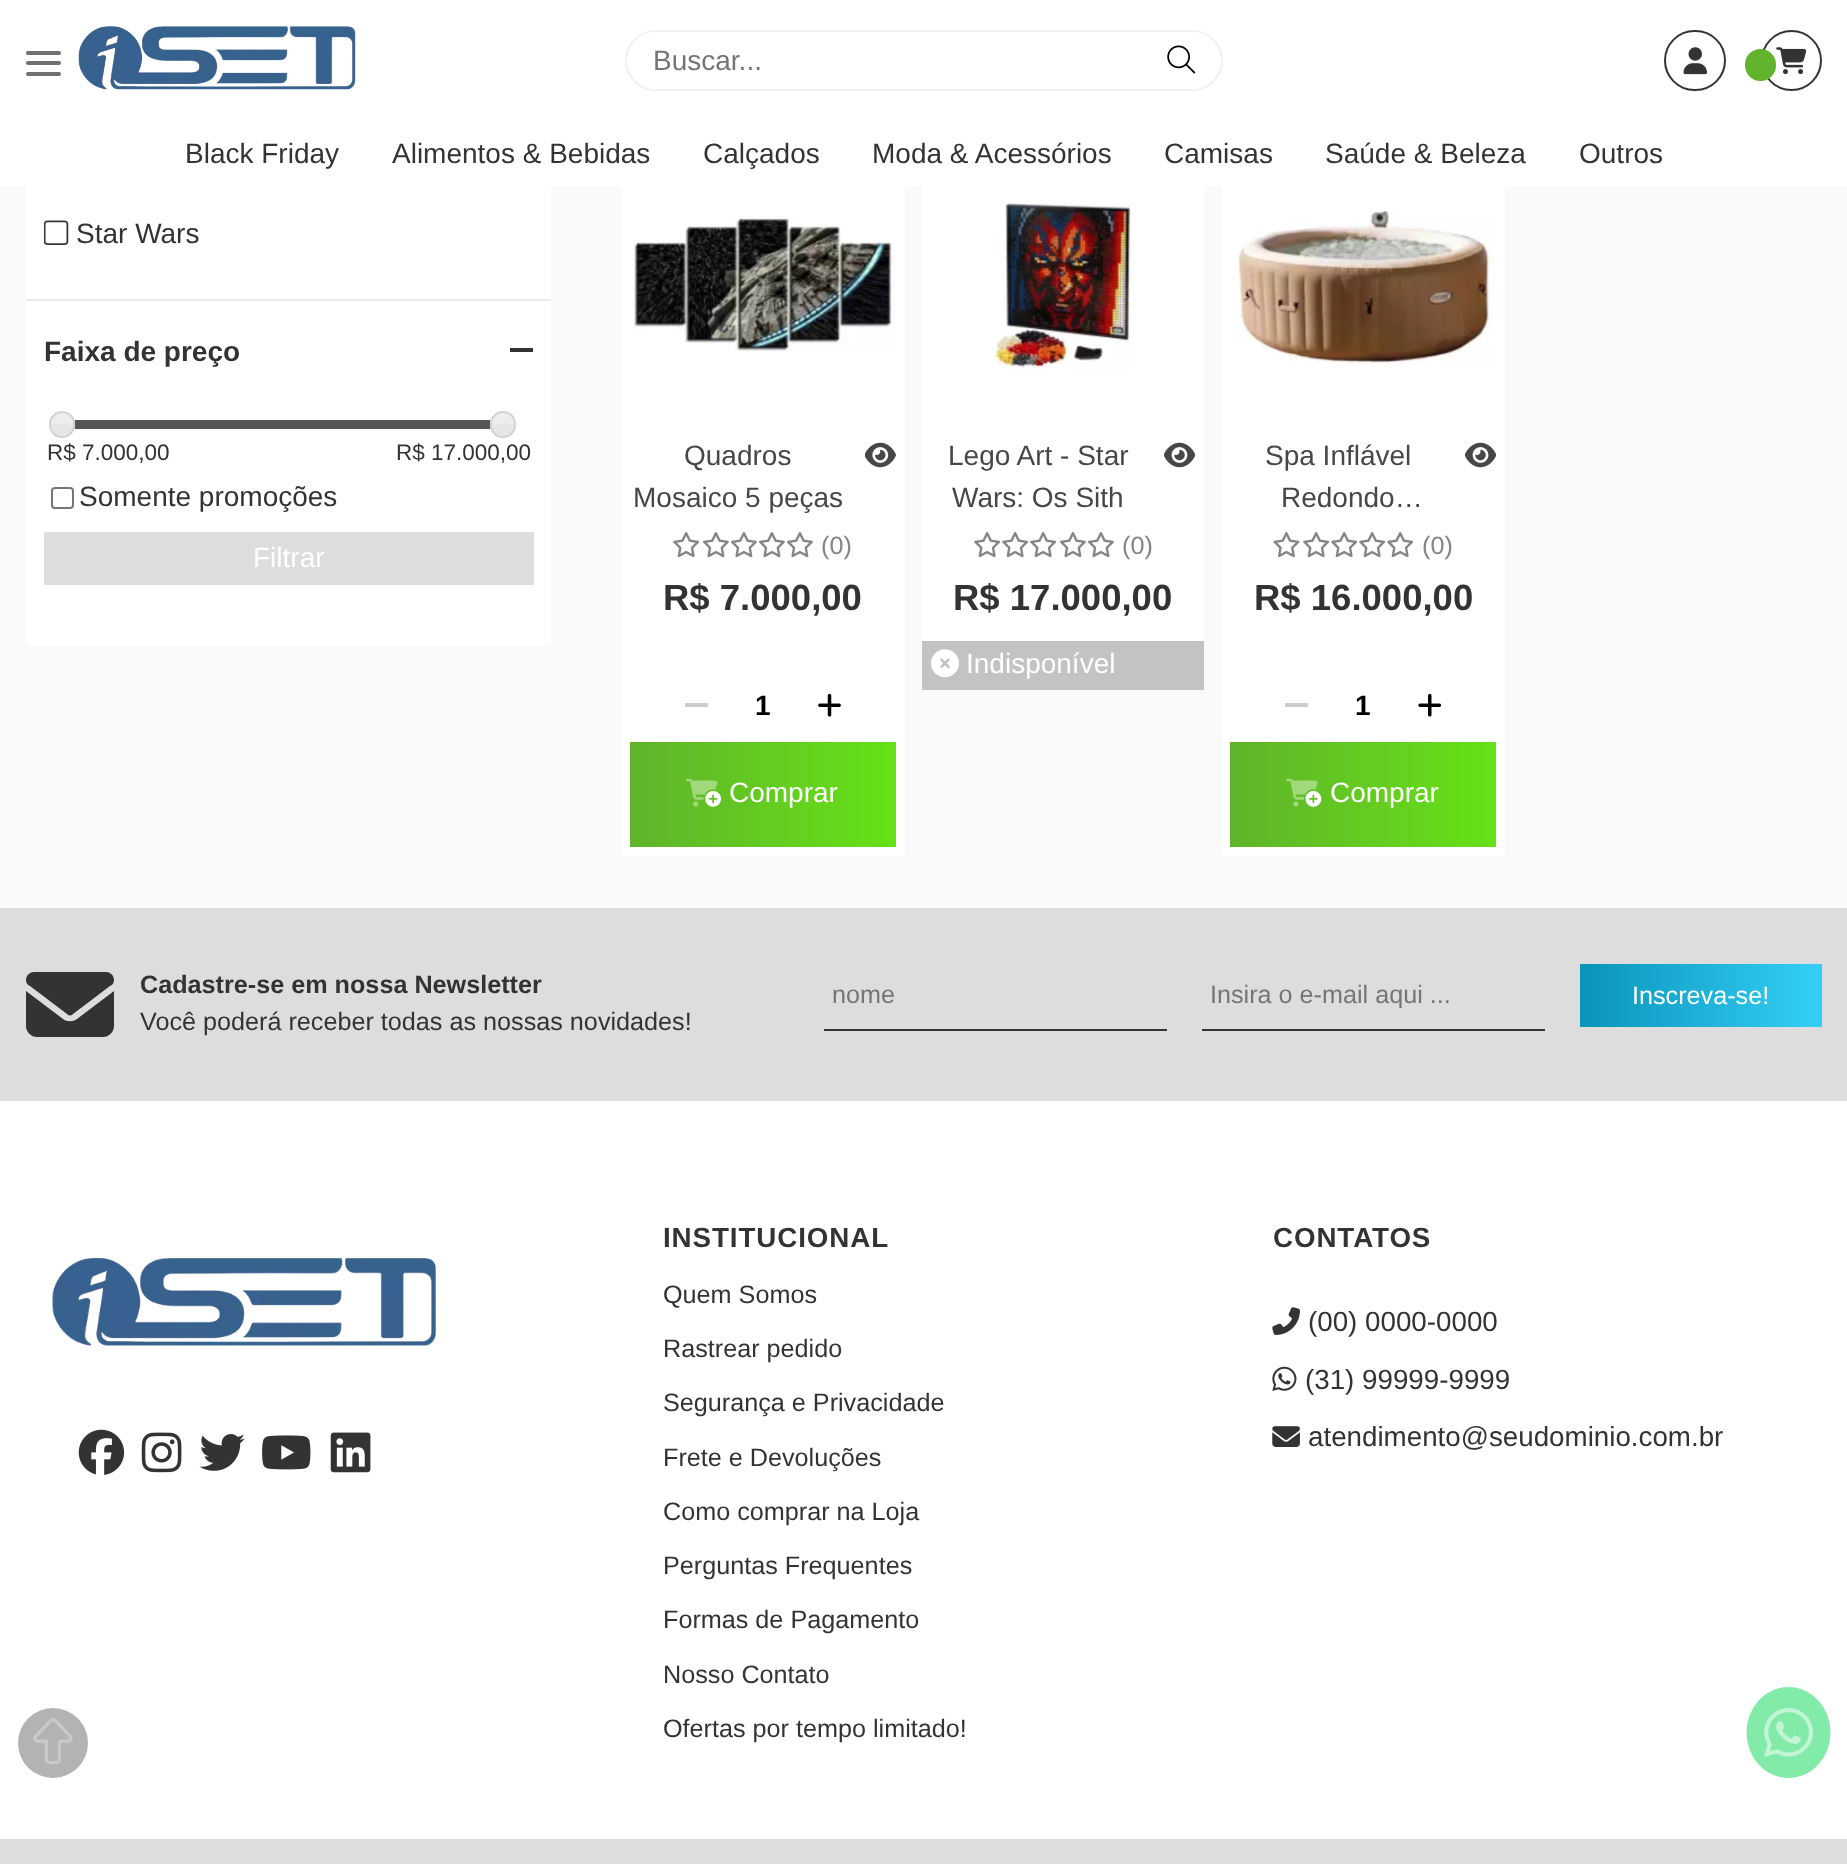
async function draw(canvas) {
  canvas.width = 1847
  canvas.height = 1864
  const ctx = canvas.getContext('2d')
  ctx.miterLimit = 4
  ctx.fontKerning = 'normal'
  async function loadImage(src) {
    const img = new Image()
    img.src = src
    await img.decode()
    return img
  }
  let gradient

  ctx.fillStyle = '#fafafa'
  ctx.fillRect(0, 0, 1847, 1864)
  ctx.fillStyle = '#fff'
  ctx.fillRect(0, 0, 1847, 186)
  ctx.fillStyle = '#707070'
  ctx.beginPath()
  ctx.roundRect(26, 51, 35, 4, 2)
  ctx.fill()
  ctx.beginPath()
  ctx.roundRect(26, 61, 35, 4, 2)
  ctx.fill()
  ctx.beginPath()
  ctx.roundRect(26, 72, 35, 4, 2)
  ctx.fill()
  ctx.drawImage(await loadImage('image0.png'), 78, 26, 278, 64)
  ctx.beginPath()
  ctx.roundRect(626, 31, 596, 59, 29.5)
  ctx.strokeStyle = '#f1f1f1'
  ctx.lineWidth = 2
  ctx.stroke()
  ctx.font = '28px Liberation Sans'
  ctx.fillStyle = '#757575'
  ctx.fillText('Buscar...', 653, 70)
  ctx.drawImage(await loadImage('image1.png'), 1167, 45, 29, 29)
  ctx.beginPath()
  ctx.roundRect(1665, 31, 60, 59, 29.5)
  ctx.strokeStyle = '#333'
  ctx.stroke()
  ctx.drawImage(await loadImage('image2.png'), 1683, 47, 24, 28)
  ctx.beginPath()
  ctx.arc(1791.5, 60.5, 29.5, 0, 2 * Math.PI)
  ctx.stroke()
  ctx.fillStyle = '#61b32b'
  ctx.beginPath()
  ctx.roundRect(1745, 49, 31, 32, 15.5)
  ctx.fill()
  ctx.drawImage(await loadImage('image3.png'), 1776, 47, 31, 28)
  ctx.fillStyle = '#333'
  ctx.fillText('Black Friday', 185, 163)
  ctx.fillText('Alimentos & Bebidas', 392, 163)
  ctx.fillText('Calçados', 703, 163)
  ctx.fillText('Moda & Acessórios', 872, 163)
  ctx.fillText('Camisas', 1164, 163)
  ctx.fillText('Saúde & Beleza', 1325, 163)
  ctx.fillText('Outros', 1579, 163)
  ctx.fillStyle = '#fff'
  ctx.fillRect(26, 186, 525, 460)
  ctx.fillStyle = '#eaeaea'
  ctx.fillRect(26, 299, 525, 2)
  ctx.drawImage(await loadImage('image4.png'), 44, 220, 25, 25)
  ctx.fillStyle = '#333'
  ctx.fillText('Star Wars', 76, 243)
  ctx.font = 'bold 28px Liberation Sans'
  ctx.fillText('Faixa de preço', 44, 361)
  ctx.fillRect(510, 348, 23, 4)
  ctx.fillStyle = '#555'
  ctx.fillRect(74, 420, 417, 9)
  ctx.fillStyle = '#e6e6e6'
  ctx.beginPath()
  ctx.roundRect(49, 411, 26, 27, 13)
  ctx.fill()
  ctx.drawImage(await loadImage('image5.png'), 49, 411, 27, 18)
  ctx.beginPath()
  ctx.roundRect(50, 412, 24, 25, 12)
  ctx.strokeStyle = '#d3d3d3'
  ctx.stroke()
  ctx.beginPath()
  ctx.roundRect(490, 411, 26, 27, 13)
  ctx.fill()
  ctx.drawImage(await loadImage('image6.png'), 490, 411, 26, 18)
  ctx.beginPath()
  ctx.roundRect(491, 412, 24, 25, 12)
  ctx.stroke()
  ctx.font = '22.5px Liberation Sans'
  ctx.fillStyle = '#333'
  ctx.fillText('R$ 7.000,00', 47, 460)
  ctx.fillText('R$ 17.000,00', 396, 460)
  ctx.beginPath()
  ctx.roundRect(52, 488, 21, 20, 3)
  ctx.strokeStyle = '#767676'
  ctx.stroke()
  ctx.font = '28px Liberation Sans'
  ctx.fillText('Somente promoções', 79, 506)
  ctx.fillStyle = '#ddd'
  ctx.fillRect(44, 532, 490, 53)
  ctx.fillStyle = '#fff'
  ctx.fillText('Filtrar', 253, 567)
  ctx.fillRect(621, 186, 284, 670)
  ctx.drawImage(await loadImage('image7.png'), 634, 216, 260, 136)
  ctx.fillStyle = '#474747'
  ctx.fillText('Quadros', 684, 465)
  ctx.fillText('Mosaico 5 peças', 633, 507)
  ctx.drawImage(await loadImage('image8.png'), 865, 442, 31, 26)
  ctx.drawImage(await loadImage('image9.png'), 673, 532, 27, 26)
  ctx.drawImage(await loadImage('image10.png'), 703, 532, 26, 26)
  ctx.drawImage(await loadImage('image10.png'), 731, 532, 26, 26)
  ctx.drawImage(await loadImage('image10.png'), 759, 532, 26, 26)
  ctx.drawImage(await loadImage('image10.png'), 787, 532, 26, 26)
  ctx.font = '25.2px Liberation Sans'
  ctx.fillStyle = '#858585'
  ctx.fillText('(0)', 821, 554)
  ctx.font = 'bold 36.5px Liberation Sans'
  ctx.fillStyle = '#333'
  ctx.fillText('R$ 7.000,00', 663, 610)
  ctx.fillStyle = '#ccc'
  ctx.fillRect(685, 703, 23, 4)
  ctx.font = 'bold 28px Liberation Sans'
  ctx.fillStyle = '#000'
  ctx.fillText('1', 755, 715)
  ctx.drawImage(await loadImage('image11.png'), 818, 693, 23, 24)
  gradient = ctx.createLinearGradient(630, 795, 1162, 795)
  gradient.addColorStop(0, '#61b32b')
  gradient.addColorStop(0.51, '#65e316')
  gradient.addColorStop(1, '#61b32b')
  ctx.fillStyle = gradient
  ctx.fillRect(630, 742, 266, 105)
  ctx.drawImage(await loadImage('image12.png'), 686, 778, 35, 29)
  ctx.font = '28px Liberation Sans'
  ctx.fillStyle = '#fff'
  ctx.fillText('Comprar', 729, 802)
  ctx.fillRect(922, 186, 282, 455)
  ctx.drawImage(await loadImage('image13.png'), 993, 202, 138, 168)
  ctx.fillStyle = '#474747'
  ctx.fillText('Lego Art - Star', 948, 465)
  ctx.fillText('Wars: Os Sith', 952, 507)
  ctx.drawImage(await loadImage('image14.png'), 1164, 442, 31, 26)
  ctx.drawImage(await loadImage('image9.png'), 974, 532, 27, 26)
  ctx.drawImage(await loadImage('image9.png'), 1002, 532, 27, 26)
  ctx.drawImage(await loadImage('image9.png'), 1030, 532, 27, 26)
  ctx.drawImage(await loadImage('image10.png'), 1060, 532, 26, 26)
  ctx.drawImage(await loadImage('image10.png'), 1088, 532, 26, 26)
  ctx.font = '25.2px Liberation Sans'
  ctx.fillStyle = '#858585'
  ctx.fillText('(0)', 1122, 554)
  ctx.font = 'bold 36.5px Liberation Sans'
  ctx.fillStyle = '#333'
  ctx.fillText('R$ 17.000,00', 953, 610)
  ctx.fillStyle = '#c3c3c3'
  ctx.fillRect(922, 641, 282, 49)
  ctx.drawImage(await loadImage('image15.png'), 931, 649, 28, 29)
  ctx.font = '28px Liberation Sans'
  ctx.fillStyle = '#fff'
  ctx.fillText('Indisponível', 966, 673)
  ctx.fillRect(1222, 186, 283, 670)
  ctx.drawImage(await loadImage('image16.png'), 1238, 211, 256, 155)
  ctx.fillStyle = '#474747'
  ctx.fillText('Spa Inflável', 1265, 465)
  ctx.fillText('Redondo…', 1281, 507)
  ctx.drawImage(await loadImage('image14.png'), 1465, 442, 31, 26)
  ctx.drawImage(await loadImage('image17.png'), 1273, 532, 27, 26)
  ctx.drawImage(await loadImage('image9.png'), 1303, 532, 27, 26)
  ctx.drawImage(await loadImage('image9.png'), 1331, 532, 27, 26)
  ctx.drawImage(await loadImage('image9.png'), 1359, 532, 27, 26)
  ctx.drawImage(await loadImage('image9.png'), 1387, 532, 27, 26)
  ctx.font = '25.2px Liberation Sans'
  ctx.fillStyle = '#858585'
  ctx.fillText('(0)', 1422, 554)
  ctx.font = 'bold 36.5px Liberation Sans'
  ctx.fillStyle = '#333'
  ctx.fillText('R$ 16.000,00', 1254, 610)
  ctx.fillStyle = '#ccc'
  ctx.fillRect(1285, 703, 23, 4)
  ctx.font = 'bold 28px Liberation Sans'
  ctx.fillStyle = '#000'
  ctx.fillText('1', 1355, 715)
  ctx.drawImage(await loadImage('image18.png'), 1418, 693, 24, 24)
  gradient = ctx.createLinearGradient(1230, 795, 1762, 795)
  gradient.addColorStop(0, '#61b32b')
  gradient.addColorStop(0.51, '#65e316')
  gradient.addColorStop(1, '#61b32b')
  ctx.fillStyle = gradient
  ctx.fillRect(1230, 742, 266, 105)
  ctx.drawImage(await loadImage('image19.png'), 1286, 778, 36, 29)
  ctx.font = '28px Liberation Sans'
  ctx.fillStyle = '#fff'
  ctx.fillText('Comprar', 1330, 802)
  ctx.fillStyle = '#ddd'
  ctx.fillRect(0, 908, 1847, 193)
  ctx.fillStyle = '#333'
  ctx.beginPath()
  ctx.moveTo(34, 972)
  ctx.bezierCurveTo(30, 972, 26, 975, 26, 980)
  ctx.bezierCurveTo(26, 982, 27, 985, 30, 986)
  ctx.lineTo(67, 1014)
  ctx.bezierCurveTo(69, 1016, 71, 1016, 73, 1014)
  ctx.lineTo(110, 986)
  ctx.bezierCurveTo(113, 985, 114, 982, 114, 980)
  ctx.bezierCurveTo(114, 975, 110, 972, 106, 972)
  ctx.closePath()
  ctx.moveTo(26, 991)
  ctx.lineTo(26, 1026)
  ctx.bezierCurveTo(26, 1032, 31, 1037, 37, 1037)
  ctx.lineTo(103, 1037)
  ctx.bezierCurveTo(109, 1037, 114, 1032, 114, 1026)
  ctx.lineTo(114, 991)
  ctx.lineTo(77, 1019)
  ctx.bezierCurveTo(73, 1022, 67, 1022, 63, 1019)
  ctx.closePath()
  ctx.fill()
  ctx.font = 'bold 25.2px Liberation Sans'
  ctx.fillText('Cadastre-se em nossa Newsletter', 140, 993)
  ctx.font = '25.2px Liberation Sans'
  ctx.fillText('Você poderá receber todas as nossas novidades!', 140, 1030)
  ctx.fillRect(824, 1029, 343, 2)
  ctx.fillStyle = '#757575'
  ctx.fillText('nome', 832, 1003)
  ctx.fillStyle = '#333'
  ctx.fillRect(1202, 1029, 343, 2)
  ctx.save()
  ctx.beginPath()
  ctx.rect(1211, 980, 326, 28)
  ctx.clip()
  ctx.fillStyle = '#757575'
  ctx.fillText('Insira o e-mail aqui ...', 1210, 1003)
  ctx.restore()
  gradient = ctx.createLinearGradient(1580, 996, 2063, 996)
  gradient.addColorStop(0, '#0994ba')
  gradient.addColorStop(0.51, '#36d0f7')
  gradient.addColorStop(1, '#0994ba')
  ctx.fillStyle = gradient
  ctx.fillRect(1580, 964, 242, 63)
  ctx.fillStyle = '#fff'
  ctx.fillText('Inscreva-se!', 1632, 1004)
  ctx.fillRect(0, 1101, 1847, 738)
  ctx.fillStyle = '#b3b3b3'
  ctx.beginPath()
  ctx.arc(53, 1743, 35, 0, 2 * Math.PI)
  ctx.fill()
  ctx.drawImage(await loadImage('image20.png'), 33, 1718, 40, 47)
  ctx.drawImage(await loadImage('image21.png'), 52, 1258, 384, 88)
  ctx.drawImage(await loadImage('image22.png'), 78, 1429, 47, 46)
  ctx.drawImage(await loadImage('image23.png'), 141, 1432, 41, 41)
  ctx.drawImage(await loadImage('image24.png'), 199, 1434, 46, 37)
  ctx.drawImage(await loadImage('image25.png'), 262, 1435, 49, 35)
  ctx.drawImage(await loadImage('image26.png'), 330, 1432, 41, 41)
  ctx.letterSpacing = '0.9px'
  ctx.font = 'bold 27.75px Liberation Sans'
  ctx.fillStyle = '#333'
  ctx.fillText('INSTITUCIONAL', 663, 1247)
  ctx.letterSpacing = '0px'
  ctx.font = '25.2px Liberation Sans'
  ctx.fillText('Quem Somos', 663, 1303)
  ctx.fillText('Rastrear pedido', 663, 1357)
  ctx.fillText('Segurança e Privacidade', 663, 1411)
  ctx.fillText('Frete e Devoluções', 663, 1466)
  ctx.fillText('Como comprar na Loja', 663, 1520)
  ctx.fillText('Perguntas Frequentes', 663, 1574)
  ctx.fillText('Formas de Pagamento', 663, 1628)
  ctx.fillText('Nosso Contato', 663, 1683)
  ctx.fillText('Ofertas por tempo limitado!', 663, 1737)
  ctx.letterSpacing = '0.9px'
  ctx.font = 'bold 27.75px Liberation Sans'
  ctx.fillText('CONTATOS', 1273, 1247)
  ctx.drawImage(await loadImage('image27.png'), 1272, 1307, 28, 28)
  ctx.letterSpacing = '0px'
  ctx.font = '27.75px Liberation Sans'
  ctx.fillText('(00) 0000-0000', 1308, 1331)
  ctx.drawImage(await loadImage('image28.png'), 1272, 1366, 25, 25)
  ctx.fillText('(31) 99999-9999', 1305, 1389)
  ctx.drawImage(await loadImage('image29.png'), 1272, 1426, 28, 21)
  ctx.fillText('atendimento@seudominio.com.br', 1308, 1446)
  ctx.fillStyle = '#ddd'
  ctx.fillRect(0, 1839, 1847, 25)
  ctx.fillStyle = '#83ebaa'
  ctx.beginPath()
  ctx.ellipse(1788.5, 1732.5, 42, 45.5, 0, 0, 2 * Math.PI)
  ctx.fill()
  ctx.drawImage(await loadImage('image30.png'), 1764, 1708, 49, 49)
}

draw(document.querySelector('canvas'))
